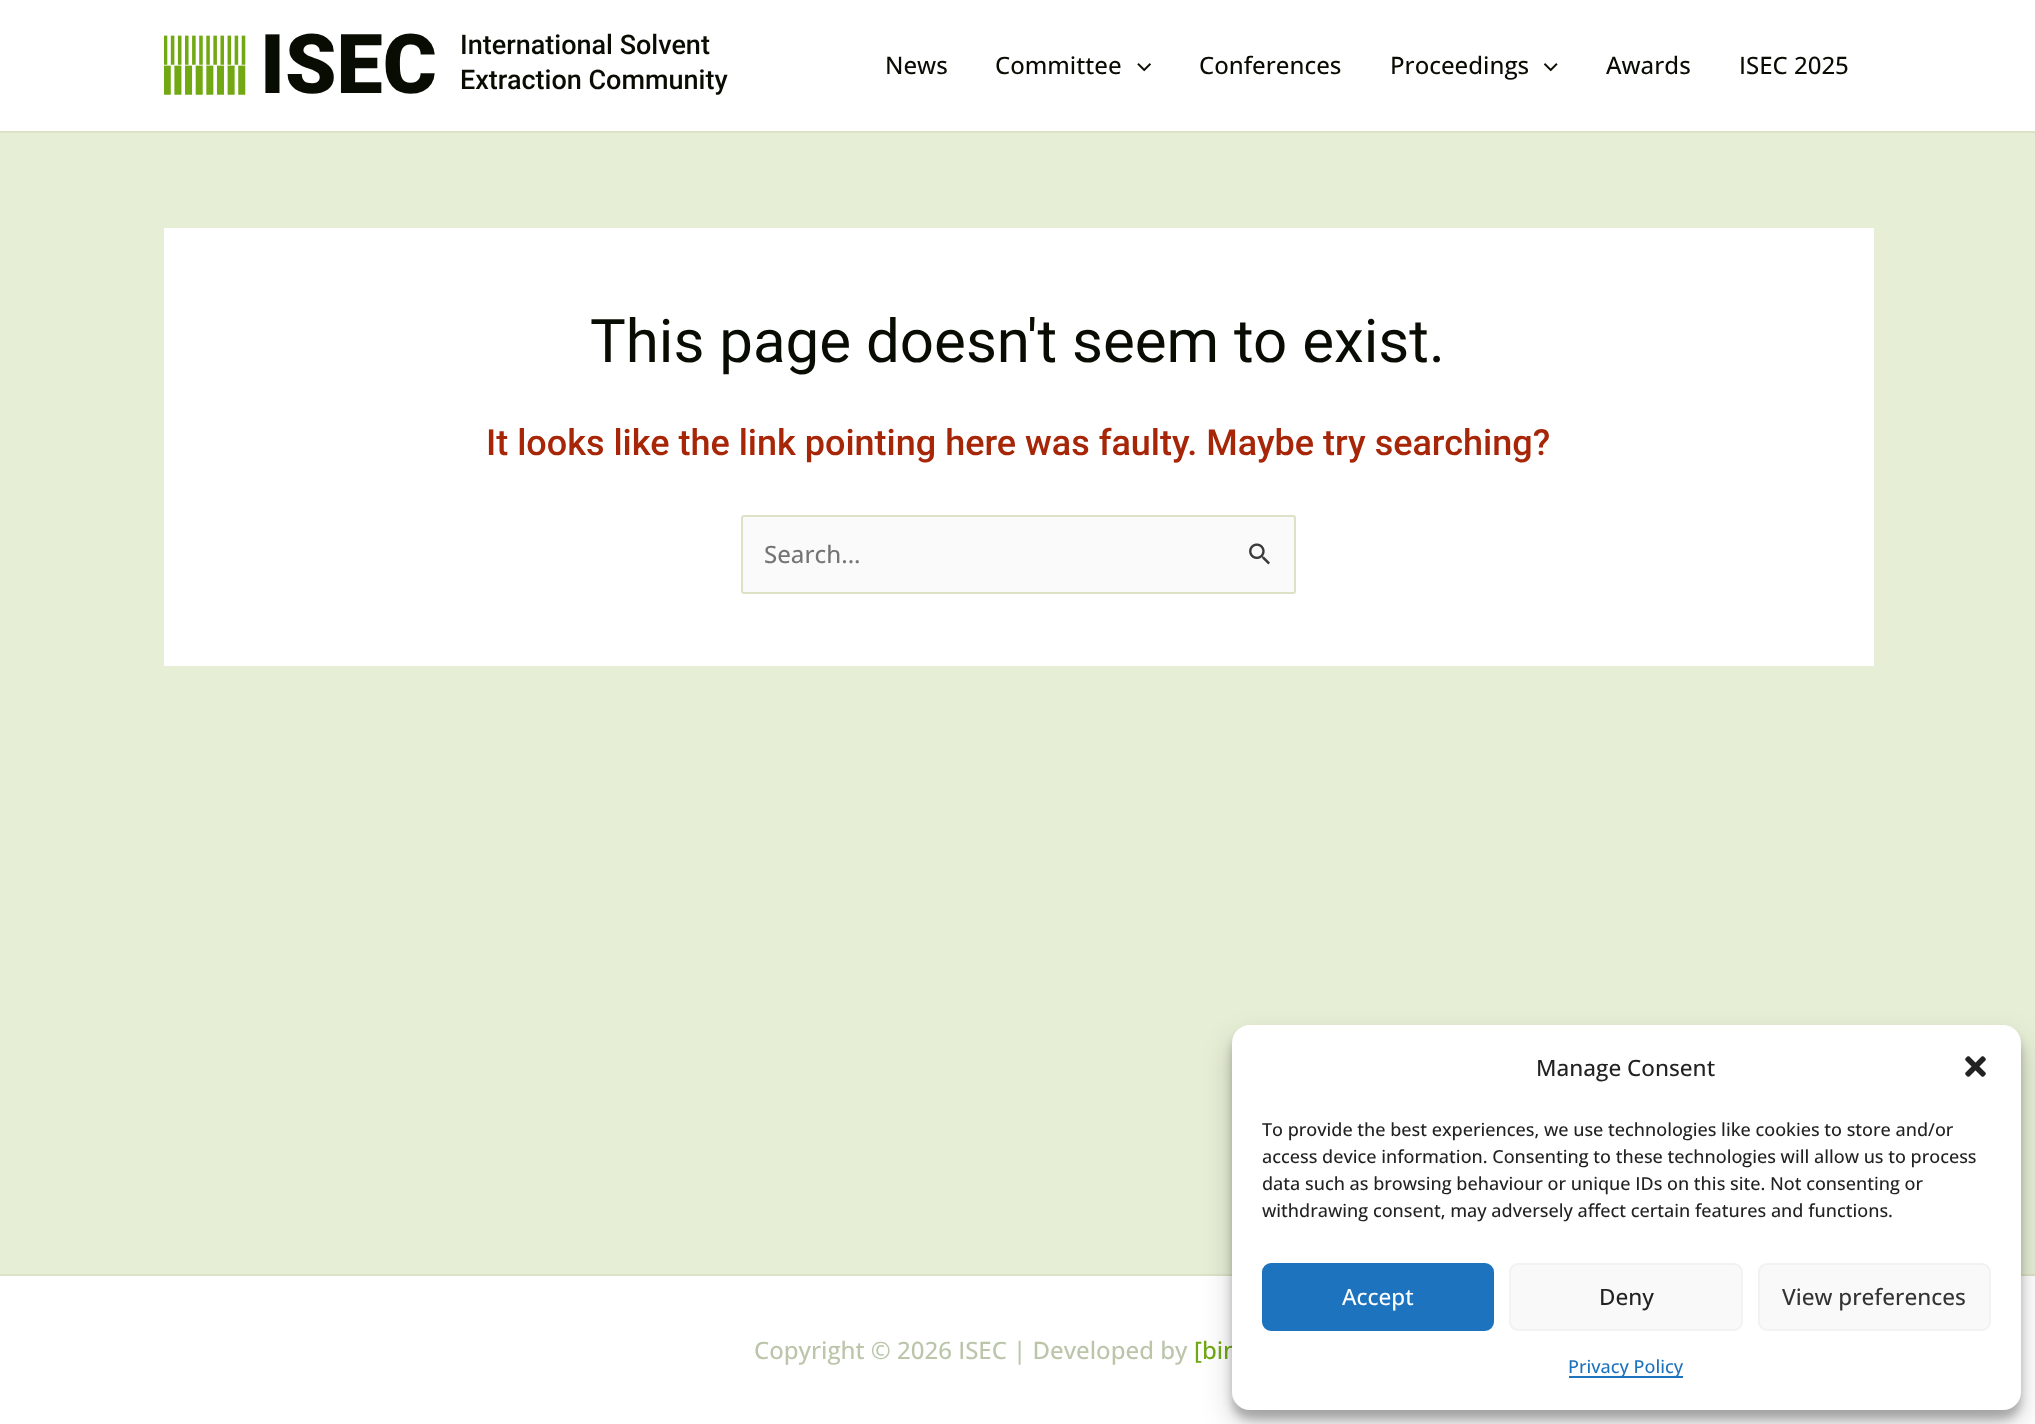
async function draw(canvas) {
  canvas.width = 2035
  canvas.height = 1424
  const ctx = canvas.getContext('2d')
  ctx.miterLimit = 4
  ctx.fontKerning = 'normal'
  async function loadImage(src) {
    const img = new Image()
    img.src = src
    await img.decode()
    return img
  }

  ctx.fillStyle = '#e6eed6'
  ctx.fillRect(0, 0, 2035, 1424)
  ctx.fillStyle = '#fff'
  ctx.fillRect(0, 0, 2035, 131)
  ctx.fillStyle = '#dde2c6'
  ctx.fillRect(0, 131, 2035, 2)
  ctx.drawImage(await loadImage('image0.png'), 164, 35, 82, 60)
  ctx.font = '900 82.5px Roboto'
  ctx.fillStyle = '#090c02'
  ctx.fillText('ISEC', 260, 93)
  ctx.font = '500 27px Roboto'
  ctx.fillText('International Solvent', 460, 54)
  ctx.fillText('Extraction Community', 460, 89)
  ctx.font = '500 24px Open Sans'
  ctx.fillText('News', 885, 74)
  ctx.fillText('Committee', 995, 74)
  ctx.drawImage(await loadImage('image1.png'), 1137, 63, 14, 9)
  ctx.fillText('Conferences', 1199, 74)
  ctx.fillText('Proceedings', 1390, 74)
  ctx.drawImage(await loadImage('image2.png'), 1544, 63, 14, 9)
  ctx.fillText('Awards', 1606, 74)
  ctx.fillText('ISEC 2025', 1739, 74)
  ctx.fillStyle = '#fff'
  ctx.fillRect(164, 228, 1710, 438)
  ctx.font = '60px Roboto'
  ctx.fillStyle = '#090c02'
  ctx.fillText('This page doesn\'t seem to exist.', 590, 362)
  ctx.font = '500 36px Roboto'
  ctx.fillStyle = '#a72608'
  ctx.fillText('It looks like the link pointing here was faulty. Maybe try searching?', 486, 455)
  ctx.fillStyle = '#fafafa'
  ctx.beginPath()
  ctx.roundRect(742, 516, 553, 77, 2)
  ctx.fill()
  ctx.strokeStyle = '#dde2c6'
  ctx.lineWidth = 2
  ctx.stroke()
  ctx.font = '500 24px Open Sans'
  ctx.fillStyle = '#757575'
  ctx.fillText('Search...', 764, 563)
  ctx.drawImage(await loadImage('image3.png'), 1249, 543, 21, 22)
  ctx.fillStyle = '#fff'
  ctx.fillRect(0, 1276, 2035, 148)
  ctx.fillStyle = '#dde2c6'
  ctx.fillRect(0, 1274, 2035, 2)
  ctx.fillStyle = '#bbc5aa'
  ctx.fillText('Copyright © 2026 ISEC | Developed by', 754, 1359)
  ctx.fillStyle = '#71a813'
  ctx.fillText('[bin', 1194, 1359)
  ctx.fillStyle = '#0000003b'
  ctx.filter = 'blur(4.5px)'
  ctx.beginPath()
  ctx.roundRect(1232, 1034, 789, 385, 18)
  ctx.fill()
  ctx.filter = 'none'
  ctx.fillStyle = '#00000030'
  ctx.filter = 'blur(15px)'
  ctx.beginPath()
  ctx.roundRect(1232, 1040, 789, 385, 18)
  ctx.fill()
  ctx.filter = 'none'
  ctx.fillStyle = '#fff'
  ctx.beginPath()
  ctx.roundRect(1232, 1025, 789, 385, 18)
  ctx.fill()
  ctx.font = '500 22.5px Open Sans'
  ctx.fillStyle = '#222'
  ctx.fillText('Manage Consent', 1536, 1076)
  ctx.drawImage(await loadImage('image4.png'), 1965, 1056, 21, 21)
  ctx.font = '500 18px Open Sans'
  ctx.fillText('To provide the best experiences, we use technologies like cookies to store and/or', 1262, 1136)
  ctx.fillText('access device information. Consenting to these technologies will allow us to process', 1262, 1163)
  ctx.fillText('data such as browsing behaviour or unique IDs on this site. Not consenting or', 1262, 1190)
  ctx.fillText('withdrawing consent, may adversely affect certain features and functions.', 1262, 1217)
  ctx.fillStyle = '#1e73be'
  ctx.beginPath()
  ctx.roundRect(1263, 1264, 230, 66, 8)
  ctx.fill()
  ctx.strokeStyle = '#1e73be'
  ctx.stroke()
  ctx.font = '500 22.5px Open Sans'
  ctx.fillStyle = '#fff'
  ctx.fillText('Accept', 1342, 1305)
  ctx.fillStyle = '#f9f9f9'
  ctx.beginPath()
  ctx.roundRect(1510, 1264, 232, 66, 8)
  ctx.fill()
  ctx.strokeStyle = '#f2f2f2'
  ctx.stroke()
  ctx.fillStyle = '#222'
  ctx.fillText('Deny', 1599, 1305)
  ctx.fillStyle = '#f9f9f9'
  ctx.beginPath()
  ctx.roundRect(1759, 1264, 231, 66, 8)
  ctx.fill()
  ctx.stroke()
  ctx.fillStyle = '#333'
  ctx.fillText('View preferences', 1782, 1305)
  ctx.fillStyle = '#1e73be'
  ctx.fillRect(1569, 1376, 114, 2)
  ctx.font = '500 18px Open Sans'
  ctx.fillText('Privacy Policy', 1568, 1373)
}

draw(document.querySelector('canvas'))
